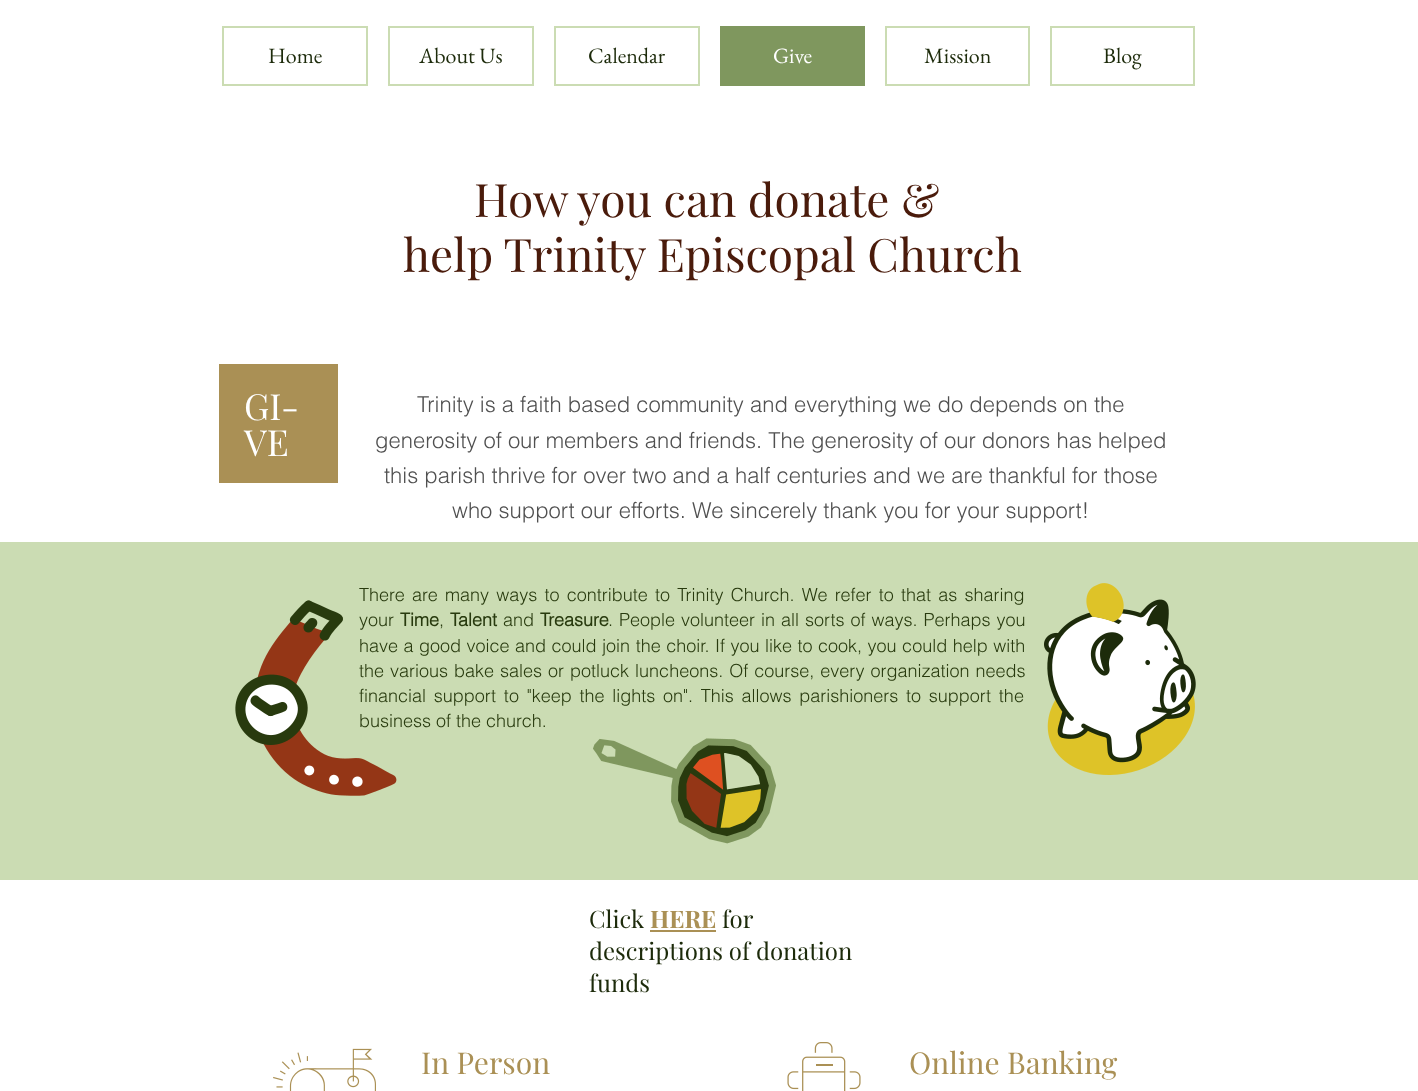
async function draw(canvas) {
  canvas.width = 1418
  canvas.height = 1091
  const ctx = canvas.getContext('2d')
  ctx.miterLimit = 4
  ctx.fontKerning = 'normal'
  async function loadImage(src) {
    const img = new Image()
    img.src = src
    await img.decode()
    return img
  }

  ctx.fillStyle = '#fff'
  ctx.fillRect(0, 0, 1418, 1091)
  ctx.strokeStyle = '#cbdcb3'
  ctx.lineWidth = 2
  ctx.strokeRect(223, 27, 144, 58)
  ctx.font = '22px EB Garamond'
  ctx.fillStyle = '#1d2b0b'
  ctx.fillText('Home', 268, 63)
  ctx.strokeRect(389, 27, 144, 58)
  ctx.fillText('About Us', 419, 63)
  ctx.strokeRect(555, 27, 144, 58)
  ctx.fillText('Calendar', 588, 63)
  ctx.fillStyle = '#7f975e'
  ctx.fillRect(720, 26, 145, 60)
  ctx.fillStyle = '#fff'
  ctx.fillText('Give', 773, 63)
  ctx.strokeRect(886, 27, 143, 58)
  ctx.fillStyle = '#1d2b0b'
  ctx.fillText('Mission', 924, 63)
  ctx.strokeRect(1051, 27, 143, 58)
  ctx.fillText('Blog', 1103, 63)
  ctx.font = '46px Playfair Display'
  ctx.fillStyle = '#4a1b0b'
  ctx.fillText('How you can donate &', 474, 217)
  ctx.fillText('help Trinity Episcopal Church', 403, 272)
  ctx.fillStyle = '#aa9055'
  ctx.fillRect(219, 364, 119, 119)
  ctx.font = '36px Playfair Display'
  ctx.fillStyle = '#fff'
  ctx.fillText('GI-', 244, 420)
  ctx.fillText('VE', 244, 456)
  ctx.font = '300 22px helvetica'
  ctx.fillStyle = '#505050'
  ctx.fillText('Trinity is a faith based community and everything we do depends on the', 417, 412)
  ctx.fillText('generosity of our members and friends. The generosity of our donors has helped', 375, 448)
  ctx.fillText('this parish thrive for over two and a half centuries and we are thankful for those', 384, 483)
  ctx.fillText('who support our efforts. We sincerely thank you for your support!', 452, 518)
  ctx.fillStyle = '#cbdcb3'
  ctx.fillRect(0, 542, 1418, 338)
  ctx.drawImage(await loadImage('image0.png'), 235, 600, 162, 196)
  ctx.wordSpacing = '2.25px'
  ctx.font = '300 18px helvetica'
  ctx.fillStyle = '#283a0e'
  ctx.fillText('There are many ways to contribute to Trinity Church. We refer to that as sharing', 359, 601)
  ctx.wordSpacing = '0px'
  ctx.fillText('your', 359, 626)
  ctx.font = 'bold 18px helvetica'
  ctx.fillText('Time', 400, 626)
  ctx.font = '300 18px helvetica'
  ctx.fillText(',', 439, 626)
  ctx.font = 'bold 18px helvetica'
  ctx.fillText('Talent', 450, 626)
  ctx.font = '300 18px helvetica'
  ctx.fillText('and', 503, 626)
  ctx.font = 'bold 18px helvetica'
  ctx.fillText('Treasure', 540, 626)
  ctx.wordSpacing = '1px'
  ctx.font = '300 18px helvetica'
  ctx.fillText('. People volunteer in all sorts of ways. Perhaps you', 608, 626)
  ctx.wordSpacing = '0.5px'
  ctx.fillText('have a good voice and could join the choir. If you like to cook, you could help with', 359, 652)
  ctx.wordSpacing = '1px'
  ctx.fillText('the various bake sales or potluck luncheons. Of course, every organization needs', 359, 677)
  ctx.wordSpacing = '2.75px'
  ctx.fillText('financial support to "keep the lights on". This allows parishioners to support the', 359, 702)
  ctx.wordSpacing = '0px'
  ctx.fillText('business of the church.', 359, 727)
  ctx.drawImage(await loadImage('image1.png'), 1044, 583, 152, 192)
  ctx.drawImage(await loadImage('image2.png'), 593, 738, 183, 106)
  ctx.font = '24px Playfair Display'
  ctx.fillStyle = '#1d2b0b'
  ctx.fillText('Click', 589, 928)
  ctx.font = 'bold 24px Playfair Display'
  ctx.fillStyle = '#aa9055'
  ctx.fillText('HERE', 650, 928)
  ctx.fillRect(650, 930, 66, 2)
  ctx.font = '24px Playfair Display'
  ctx.fillStyle = '#1d2b0b'
  ctx.fillText('for', 722, 928)
  ctx.fillText('descriptions of donation', 589, 960)
  ctx.fillText('funds', 589, 992)
  ctx.drawImage(await loadImage('image3.png'), 273, 1048, 103, 43)
  ctx.font = '30px Playfair Display'
  ctx.fillStyle = '#aa9055'
  ctx.fillText('In Person', 421, 1074)
  ctx.drawImage(await loadImage('image4.png'), 787, 1042, 74, 49)
  ctx.fillText('Online Banking', 909, 1074)
}

draw(document.querySelector('canvas'))
